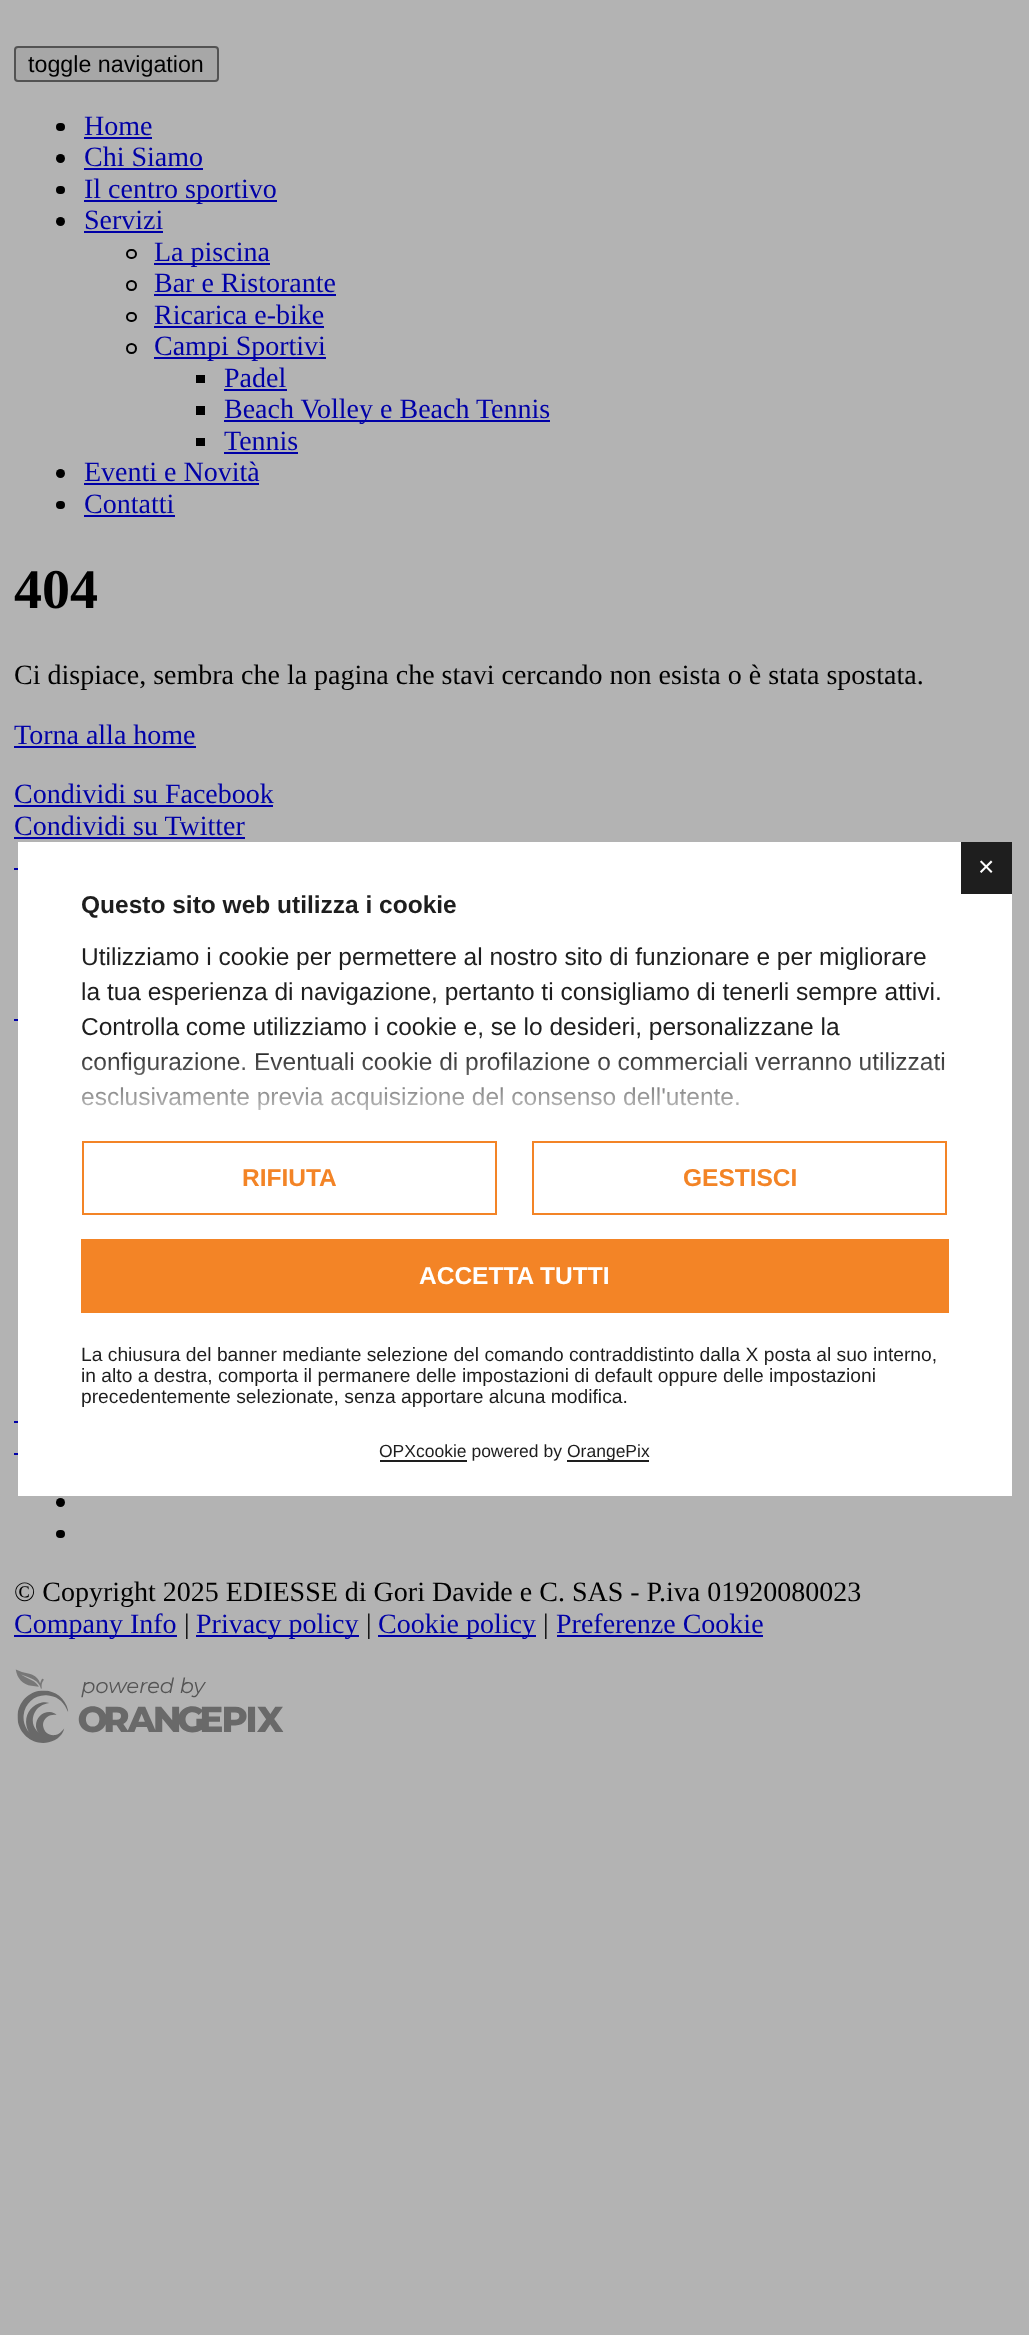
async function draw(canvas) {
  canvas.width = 1029
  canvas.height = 2335
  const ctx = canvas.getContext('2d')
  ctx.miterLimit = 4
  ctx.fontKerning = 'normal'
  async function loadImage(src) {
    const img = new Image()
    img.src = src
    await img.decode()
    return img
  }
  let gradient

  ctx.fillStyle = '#b3b3b3'
  ctx.fillRect(0, 0, 1029, 2335)
  ctx.fillStyle = '#a7a7a7'
  ctx.beginPath()
  ctx.roundRect(15, 47, 203, 34, 3)
  ctx.fill()
  ctx.strokeStyle = '#535353'
  ctx.lineWidth = 2
  ctx.stroke()
  ctx.font = '23.25px Liberation Sans'
  ctx.fillStyle = '#000'
  ctx.fillText('toggle navigation', 28, 72)
  ctx.beginPath()
  ctx.roundRect(56, 123, 9, 8, 4)
  ctx.fill()
  ctx.font = '28px Liberation Serif'
  ctx.fillStyle = '#0000a7'
  ctx.fillText('Home', 84, 135)
  ctx.fillRect(84, 137, 68, 2)
  ctx.fillStyle = '#000'
  ctx.beginPath()
  ctx.arc(60.5, 158.5, 4.5, 0, 2 * Math.PI)
  ctx.fill()
  ctx.fillStyle = '#0000a7'
  ctx.fillText('Chi Siamo', 84, 166)
  ctx.fillRect(84, 168, 119, 2)
  ctx.fillStyle = '#000'
  ctx.beginPath()
  ctx.roundRect(56, 186, 9, 8, 4)
  ctx.fill()
  ctx.fillStyle = '#0000a7'
  ctx.fillRect(84, 200, 193, 2)
  ctx.fillText('Il centro sportivo', 84, 198)
  ctx.fillStyle = '#000'
  ctx.beginPath()
  ctx.arc(60.5, 221.5, 4.5, 0, 2 * Math.PI)
  ctx.fill()
  ctx.fillStyle = '#0000a7'
  ctx.fillText('Servizi', 84, 229)
  ctx.fillRect(84, 231, 79, 2)
  ctx.beginPath()
  ctx.roundRect(127, 250, 9, 8, 4)
  ctx.strokeStyle = '#000'
  ctx.stroke()
  ctx.fillRect(154, 263, 116, 2)
  ctx.fillText('La piscina', 154, 261)
  ctx.beginPath()
  ctx.arc(131.5, 285.5, 4.5, 0, 2 * Math.PI)
  ctx.stroke()
  ctx.fillText('Bar e Ristorante', 154, 292)
  ctx.fillRect(154, 294, 182, 2)
  ctx.beginPath()
  ctx.roundRect(127, 313, 9, 8, 4)
  ctx.stroke()
  ctx.fillText('Ricarica e-bike', 154, 324)
  ctx.fillRect(154, 326, 170, 2)
  ctx.beginPath()
  ctx.arc(131.5, 348.5, 4.5, 0, 2 * Math.PI)
  ctx.stroke()
  ctx.fillRect(154, 357, 172, 2)
  ctx.fillText('Campi Sportivi', 154, 355)
  ctx.fillStyle = '#000'
  ctx.fillRect(196, 375, 9, 8)
  ctx.fillStyle = '#0000a7'
  ctx.fillText('Padel', 224, 387)
  ctx.fillRect(224, 389, 63, 2)
  ctx.fillStyle = '#000'
  ctx.fillRect(196, 406, 9, 9)
  ctx.fillStyle = '#0000a7'
  ctx.fillRect(224, 420, 326, 2)
  ctx.fillText('Beach Volley e Beach Tennis', 224, 418)
  ctx.fillStyle = '#000'
  ctx.fillRect(196, 438, 9, 8)
  ctx.fillStyle = '#0000a7'
  ctx.fillText('Tennis', 224, 450)
  ctx.fillRect(224, 452, 74, 2)
  ctx.fillStyle = '#000'
  ctx.beginPath()
  ctx.arc(60.5, 473.5, 4.5, 0, 2 * Math.PI)
  ctx.fill()
  ctx.fillStyle = '#0000a7'
  ctx.fillText('Eventi e Novità', 84, 481)
  ctx.fillRect(84, 483, 175, 2)
  ctx.fillStyle = '#000'
  ctx.beginPath()
  ctx.roundRect(56, 501, 9, 8, 4)
  ctx.fill()
  ctx.fillStyle = '#0000a7'
  ctx.fillText('Contatti', 84, 513)
  ctx.fillRect(84, 515, 91, 2)
  ctx.font = 'bold 56px Liberation Serif'
  ctx.fillStyle = '#000'
  ctx.fillText('404', 14, 608)
  ctx.font = '28px Liberation Serif'
  ctx.fillText('Ci dispiace, sembra che la pagina che stavi cercando non esista o è stata spostata.', 14, 684)
  ctx.fillStyle = '#0000a7'
  ctx.fillText('Torna alla home', 14, 744)
  ctx.fillRect(14, 746, 182, 2)
  ctx.fillText('Condividi su Facebook', 14, 803)
  ctx.fillRect(14, 805, 259, 2)
  ctx.fillText('Condividi su Twitter', 14, 835)
  ctx.fillRect(14, 837, 231, 2)
  ctx.fillRect(14, 868, 4, 2)
  ctx.fillStyle = '#fff'
  ctx.fillRect(18, 842, 994, 654)
  ctx.fillStyle = '#1e1e1e'
  ctx.fillRect(961, 842, 51, 52)
  ctx.font = '28px Liberation Sans'
  ctx.fillStyle = '#fff'
  ctx.fillText('×', 978, 876)
  ctx.font = 'bold 24.5px Liberation Sans'
  ctx.fillStyle = '#1e1e1e'
  ctx.fillText('Questo sito web utilizza i cookie', 81, 913)
  ctx.font = '24.5px Liberation Sans'
  ctx.fillText('Utilizziamo i cookie per permettere al nostro sito di funzionare e per migliorare', 81, 965)
  ctx.fillText('la tua esperienza di navigazione, pertanto ti consigliamo di tenerli sempre attivi.', 81, 1000)
  ctx.fillText('Controlla come utilizziamo i cookie e, se lo desideri, personalizzane la', 81, 1035)
  ctx.fillText('configurazione. Eventuali cookie di profilazione o commerciali verranno utilizzati', 81, 1070)
  ctx.fillText('esclusivamente previa acquisizione del consenso dell\'utente.', 81, 1105)
  gradient = ctx.createLinearGradient(515, 1136, 515, 1048)
  gradient.addColorStop(0, '#fff')
  gradient.addColorStop(1, '#ffffff00')
  ctx.fillStyle = gradient
  ctx.fillRect(81, 1052, 863, 59)
  ctx.strokeStyle = '#f38426'
  ctx.strokeRect(83, 1142, 413, 72)
  ctx.font = 'bold 24.5px Liberation Sans'
  ctx.fillStyle = '#f38426'
  ctx.fillText('RIFIUTA', 242, 1186)
  ctx.strokeRect(533, 1142, 413, 72)
  ctx.fillText('GESTISCI', 683, 1186)
  ctx.fillRect(81, 1239, 868, 74)
  ctx.fillStyle = '#fff'
  ctx.fillText('ACCETTA TUTTI', 419, 1284)
  ctx.font = '19.25px Liberation Sans'
  ctx.fillStyle = '#1e1e1e'
  ctx.fillText('La chiusura del banner mediante selezione del comando contraddistinto dalla X posta al suo interno,', 81, 1361)
  ctx.fillText('in alto a destra, comporta il permanere delle impostazioni di default oppure delle impostazioni', 81, 1382)
  ctx.fillText('precedentemente selezionate, senza apportare alcuna modifica.', 81, 1403)
  ctx.fillRect(380, 1460, 87, 2)
  ctx.font = '17.5px Liberation Sans'
  ctx.fillText('OPXcookie powered by', 379, 1457)
  ctx.fillRect(567, 1460, 82, 2)
  ctx.fillText('OrangePix', 567, 1457)
  ctx.fillStyle = '#0000a7'
  ctx.fillRect(14, 1019, 4, 2)
  ctx.fillRect(14, 1421, 4, 2)
  ctx.fillRect(14, 1453, 4, 2)
  ctx.fillStyle = '#000'
  ctx.beginPath()
  ctx.arc(60.5, 1502.5, 4.5, 0, 2 * Math.PI)
  ctx.fill()
  ctx.beginPath()
  ctx.roundRect(56, 1530, 9, 8, 4)
  ctx.fill()
  ctx.font = '28px Liberation Serif'
  ctx.fillText('© Copyright 2025 EDIESSE di Gori Davide e C. SAS - P.iva 01920080023', 14, 1601)
  ctx.fillStyle = '#0000a7'
  ctx.fillRect(14, 1635, 163, 2)
  ctx.fillText('Company Info', 14, 1633)
  ctx.fillStyle = '#000'
  ctx.fillText('|', 184, 1633)
  ctx.fillStyle = '#0000a7'
  ctx.fillRect(196, 1635, 163, 2)
  ctx.fillText('Privacy policy', 196, 1633)
  ctx.fillStyle = '#000'
  ctx.fillText('|', 366, 1633)
  ctx.fillStyle = '#0000a7'
  ctx.fillRect(378, 1635, 158, 2)
  ctx.fillText('Cookie policy', 378, 1633)
  ctx.fillStyle = '#000'
  ctx.fillText('|', 543, 1633)
  ctx.fillStyle = '#0000a7'
  ctx.fillText('Preferenze Cookie', 556, 1633)
  ctx.fillRect(557, 1635, 206, 2)
  ctx.drawImage(await loadImage('image0.png'), 15, 1669, 269, 74)
}

draw(document.querySelector('canvas'))
